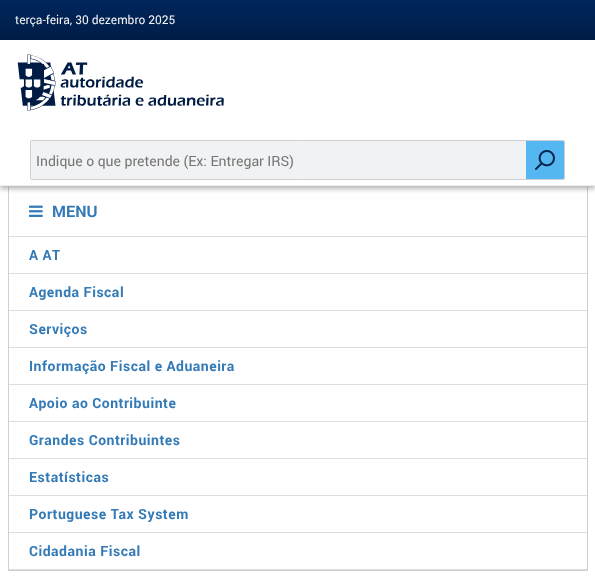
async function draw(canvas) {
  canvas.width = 595
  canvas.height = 583
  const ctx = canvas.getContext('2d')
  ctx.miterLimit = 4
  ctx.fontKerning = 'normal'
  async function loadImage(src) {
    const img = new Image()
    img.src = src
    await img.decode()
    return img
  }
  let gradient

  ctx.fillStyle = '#fff'
  ctx.fillRect(0, 0, 595, 583)
  gradient = ctx.createLinearGradient(298, 0, 298, 40)
  gradient.addColorStop(0, '#00265e')
  gradient.addColorStop(1, '#001c44')
  ctx.fillStyle = gradient
  ctx.fillRect(0, 0, 595, 40)
  ctx.font = '12px Roboto'
  ctx.fillStyle = '#f0f2f3'
  ctx.fillText('terça-feira, 30 dezembro 2025', 15, 24)
  ctx.fillStyle = '#cdd1d3'
  ctx.fillRect(587, 187, 1, 384)
  ctx.fillRect(8, 570, 580, 1)
  ctx.fillRect(8, 187, 1, 384)
  ctx.save()
  ctx.beginPath()
  ctx.moveTo(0, 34)
  ctx.lineTo(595, 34)
  ctx.lineTo(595, 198)
  ctx.lineTo(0, 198)
  ctx.closePath()
  ctx.moveTo(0, 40)
  ctx.lineTo(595, 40)
  ctx.lineTo(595, 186)
  ctx.lineTo(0, 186)
  ctx.closePath()
  ctx.clip('evenodd')
  ctx.fillStyle = '#32323259'
  ctx.filter = 'blur(2.5px)'
  ctx.beginPath()
  ctx.rect(0, 43, 595, 146)
  ctx.fill()
  ctx.filter = 'none'
  ctx.restore()
  ctx.fillStyle = '#ececec'
  ctx.fillRect(0, 185, 595, 1)
  ctx.drawImage(await loadImage('image0.png'), 17, 54, 207, 57)
  ctx.fillStyle = '#f0f2f3'
  ctx.beginPath()
  ctx.roundRect(30.5, 140.5, 534, 39, 1.5)
  ctx.fill()
  ctx.strokeStyle = '#cdd1d3'
  ctx.stroke()
  ctx.font = '14px Roboto'
  ctx.fillStyle = '#757575'
  ctx.fillText('Indique o que pretende (Ex: Entregar IRS)', 36, 166)
  ctx.fillStyle = '#54b7f2'
  ctx.beginPath()
  ctx.roundRect(526, 141, 38, 38, [0, 1, 1, 0])
  ctx.fill()
  ctx.drawImage(await loadImage('image1.png'), 535, 150, 20, 20)
  ctx.drawImage(await loadImage('image2.png'), 29, 205, 14, 12)
  ctx.font = 'bold 16px Roboto'
  ctx.fillStyle = '#337ab7'
  ctx.fillText('MENU', 52, 217)
  ctx.fillStyle = '#ddd'
  ctx.fillRect(9, 236, 578, 1)
  ctx.fillRect(9, 569, 578, 1)
  ctx.fillRect(9, 273, 578, 1)
  ctx.letterSpacing = '0.5px'
  ctx.font = 'bold 14px Roboto'
  ctx.fillStyle = '#337ab7'
  ctx.fillText('A AT', 29, 260)
  ctx.fillStyle = '#ddd'
  ctx.fillRect(9, 310, 578, 1)
  ctx.fillStyle = '#337ab7'
  ctx.fillText('Agenda Fiscal', 29, 297)
  ctx.fillStyle = '#ddd'
  ctx.fillRect(9, 347, 578, 1)
  ctx.fillStyle = '#337ab7'
  ctx.fillText('Serviços', 29, 334)
  ctx.fillStyle = '#ddd'
  ctx.fillRect(9, 384, 578, 1)
  ctx.fillStyle = '#337ab7'
  ctx.fillText('Informação Fiscal e Aduaneira', 29, 371)
  ctx.fillStyle = '#ddd'
  ctx.fillRect(9, 421, 578, 1)
  ctx.fillStyle = '#337ab7'
  ctx.fillText('Apoio ao Contribuinte', 29, 408)
  ctx.fillStyle = '#ddd'
  ctx.fillRect(9, 458, 578, 1)
  ctx.fillStyle = '#337ab7'
  ctx.fillText('Grandes Contribuintes', 29, 445)
  ctx.fillStyle = '#ddd'
  ctx.fillRect(9, 495, 578, 1)
  ctx.fillStyle = '#337ab7'
  ctx.fillText('Estatísticas', 29, 482)
  ctx.fillStyle = '#ddd'
  ctx.fillRect(9, 532, 578, 1)
  ctx.fillStyle = '#337ab7'
  ctx.fillText('Portuguese Tax System', 29, 519)
  ctx.fillText('Cidadania Fiscal', 29, 556)
}

draw(document.querySelector('canvas'))
